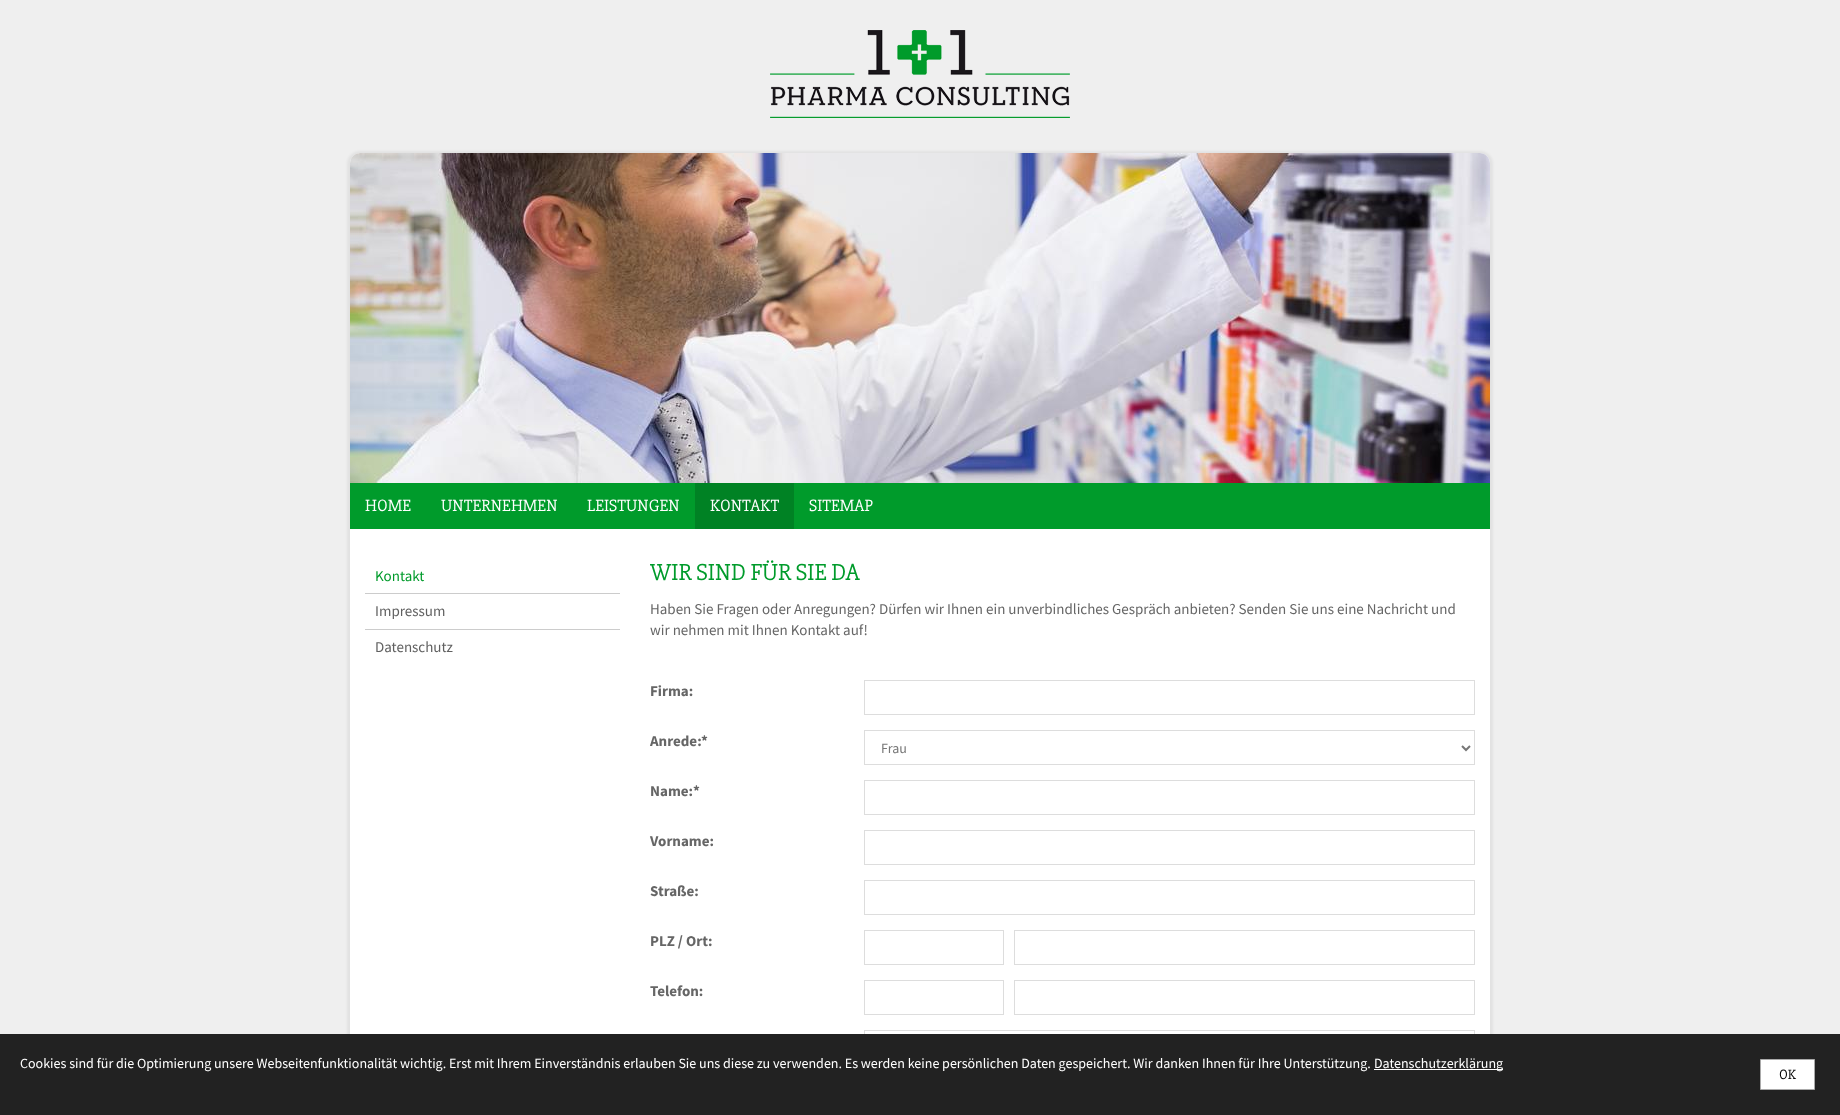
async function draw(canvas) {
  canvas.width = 1840
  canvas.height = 1115
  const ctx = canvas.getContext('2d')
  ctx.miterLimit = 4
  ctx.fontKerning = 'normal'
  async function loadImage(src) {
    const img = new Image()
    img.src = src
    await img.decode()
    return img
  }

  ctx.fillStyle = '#efefef'
  ctx.fillRect(0, 0, 1840, 1115)
  ctx.drawImage(await loadImage('image0.png'), 770, 30, 300, 88)
  ctx.fillStyle = '#0000000d'
  ctx.filter = 'blur(1px)'
  ctx.beginPath()
  ctx.roundRect(347, 151, 1146, 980, 13)
  ctx.fill()
  ctx.filter = 'none'
  ctx.fillStyle = '#fff'
  ctx.beginPath()
  ctx.roundRect(350, 153, 1140, 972, 10)
  ctx.fill()
  ctx.drawImage(await loadImage('image1.png'), 350, 153, 1140, 330)
  ctx.fillStyle = '#009b2b'
  ctx.fillRect(350, 483, 1140, 46)
  ctx.font = '17px "Slabo 27px"'
  ctx.fillStyle = '#fff'
  ctx.fillText('HOME', 365, 511)
  ctx.fillText('UNTERNEHMEN', 441, 511)
  ctx.fillText('LEISTUNGEN', 587, 511)
  ctx.fillStyle = '#008224'
  ctx.fillRect(695, 483, 99, 46)
  ctx.fillStyle = '#fff'
  ctx.fillText('KONTAKT', 710, 511)
  ctx.fillText('SITEMAP', 809, 511)
  ctx.fillStyle = '#ccc'
  ctx.fillRect(365, 593, 255, 1)
  ctx.font = '15px Source Sans Pro'
  ctx.fillStyle = '#009b2b'
  ctx.fillText('Kontakt', 375, 581)
  ctx.fillStyle = '#ccc'
  ctx.fillRect(365, 629, 255, 1)
  ctx.fillStyle = '#606060'
  ctx.fillText('Impressum', 375, 616)
  ctx.fillText('Datenschutz', 375, 652)
  ctx.font = '24px "Slabo 27px"'
  ctx.fillStyle = '#009b2b'
  ctx.fillText('WIR SIND FÜR SIE DA', 650, 580)
  ctx.font = '15px Source Sans Pro'
  ctx.fillStyle = '#666'
  ctx.fillText('Haben Sie Fragen oder Anregungen? Dürfen wir Ihnen ein unverbindliches Gespräch anbieten? Senden Sie uns eine Nachricht und', 650, 614)
  ctx.fillText('wir nehmen mit Ihnen Kontakt auf!', 650, 635)
  ctx.font = 'bold 15px Source Sans Pro'
  ctx.fillText('Firma:', 650, 696)
  ctx.strokeStyle = '#ddd'
  ctx.strokeRect(864.5, 680.5, 610, 34)
  ctx.fillText('Anrede:', 650, 746)
  ctx.fillText('*', 701, 746)
  ctx.strokeRect(864.5, 730.5, 610, 34)
  ctx.beginPath()
  ctx.moveTo(1462, 746)
  ctx.lineTo(1466, 750)
  ctx.lineTo(1470, 746)
  ctx.strokeStyle = '#777'
  ctx.lineWidth = 2
  ctx.stroke()
  ctx.font = '14px Source Sans Pro'
  ctx.fillStyle = '#777'
  ctx.fillText('Frau', 881, 753)
  ctx.font = 'bold 15px Source Sans Pro'
  ctx.fillStyle = '#666'
  ctx.fillText('Name:', 650, 796)
  ctx.fillText('*', 693, 796)
  ctx.strokeStyle = '#ddd'
  ctx.lineWidth = 1
  ctx.strokeRect(864.5, 780.5, 610, 34)
  ctx.fillText('Vorname:', 650, 846)
  ctx.strokeRect(864.5, 830.5, 610, 34)
  ctx.fillText('Straße:', 650, 896)
  ctx.strokeRect(864.5, 880.5, 610, 34)
  ctx.fillText('PLZ / Ort:', 650, 946)
  ctx.strokeRect(864.5, 930.5, 139, 34)
  ctx.strokeRect(1014.5, 930.5, 460, 34)
  ctx.fillText('Telefon:', 650, 996)
  ctx.strokeRect(864.5, 980.5, 139, 34)
  ctx.strokeRect(1014.5, 980.5, 460, 34)
  ctx.strokeRect(864.5, 1030.5, 610, 34)
  ctx.fillStyle = '#222'
  ctx.fillRect(0, 1034, 1840, 81)
  ctx.font = '14px Source Sans Pro'
  ctx.fillStyle = '#fff'
  ctx.fillText('Cookies sind für die Optimierung unsere Webseitenfunktionalität wichtig. Erst mit Ihrem Einverständnis erlauben Sie uns diese zu verwenden. Es werden keine persönlichen Daten gespeichert. Wir danken Ihnen für Ihre Unterstützung.', 20, 1068)
  ctx.fillRect(1374, 1069, 129, 1)
  ctx.fillText('Datenschutzerklärung', 1374, 1068)
  ctx.beginPath()
  ctx.rect(1760.5, 1059.5, 54, 30)
  ctx.fill()
  ctx.strokeStyle = '#aaa'
  ctx.stroke()
  ctx.font = '14px "Slabo 27px"'
  ctx.fillStyle = '#000'
  ctx.fillText('OK', 1779, 1079)
}

draw(document.querySelector('canvas'))
